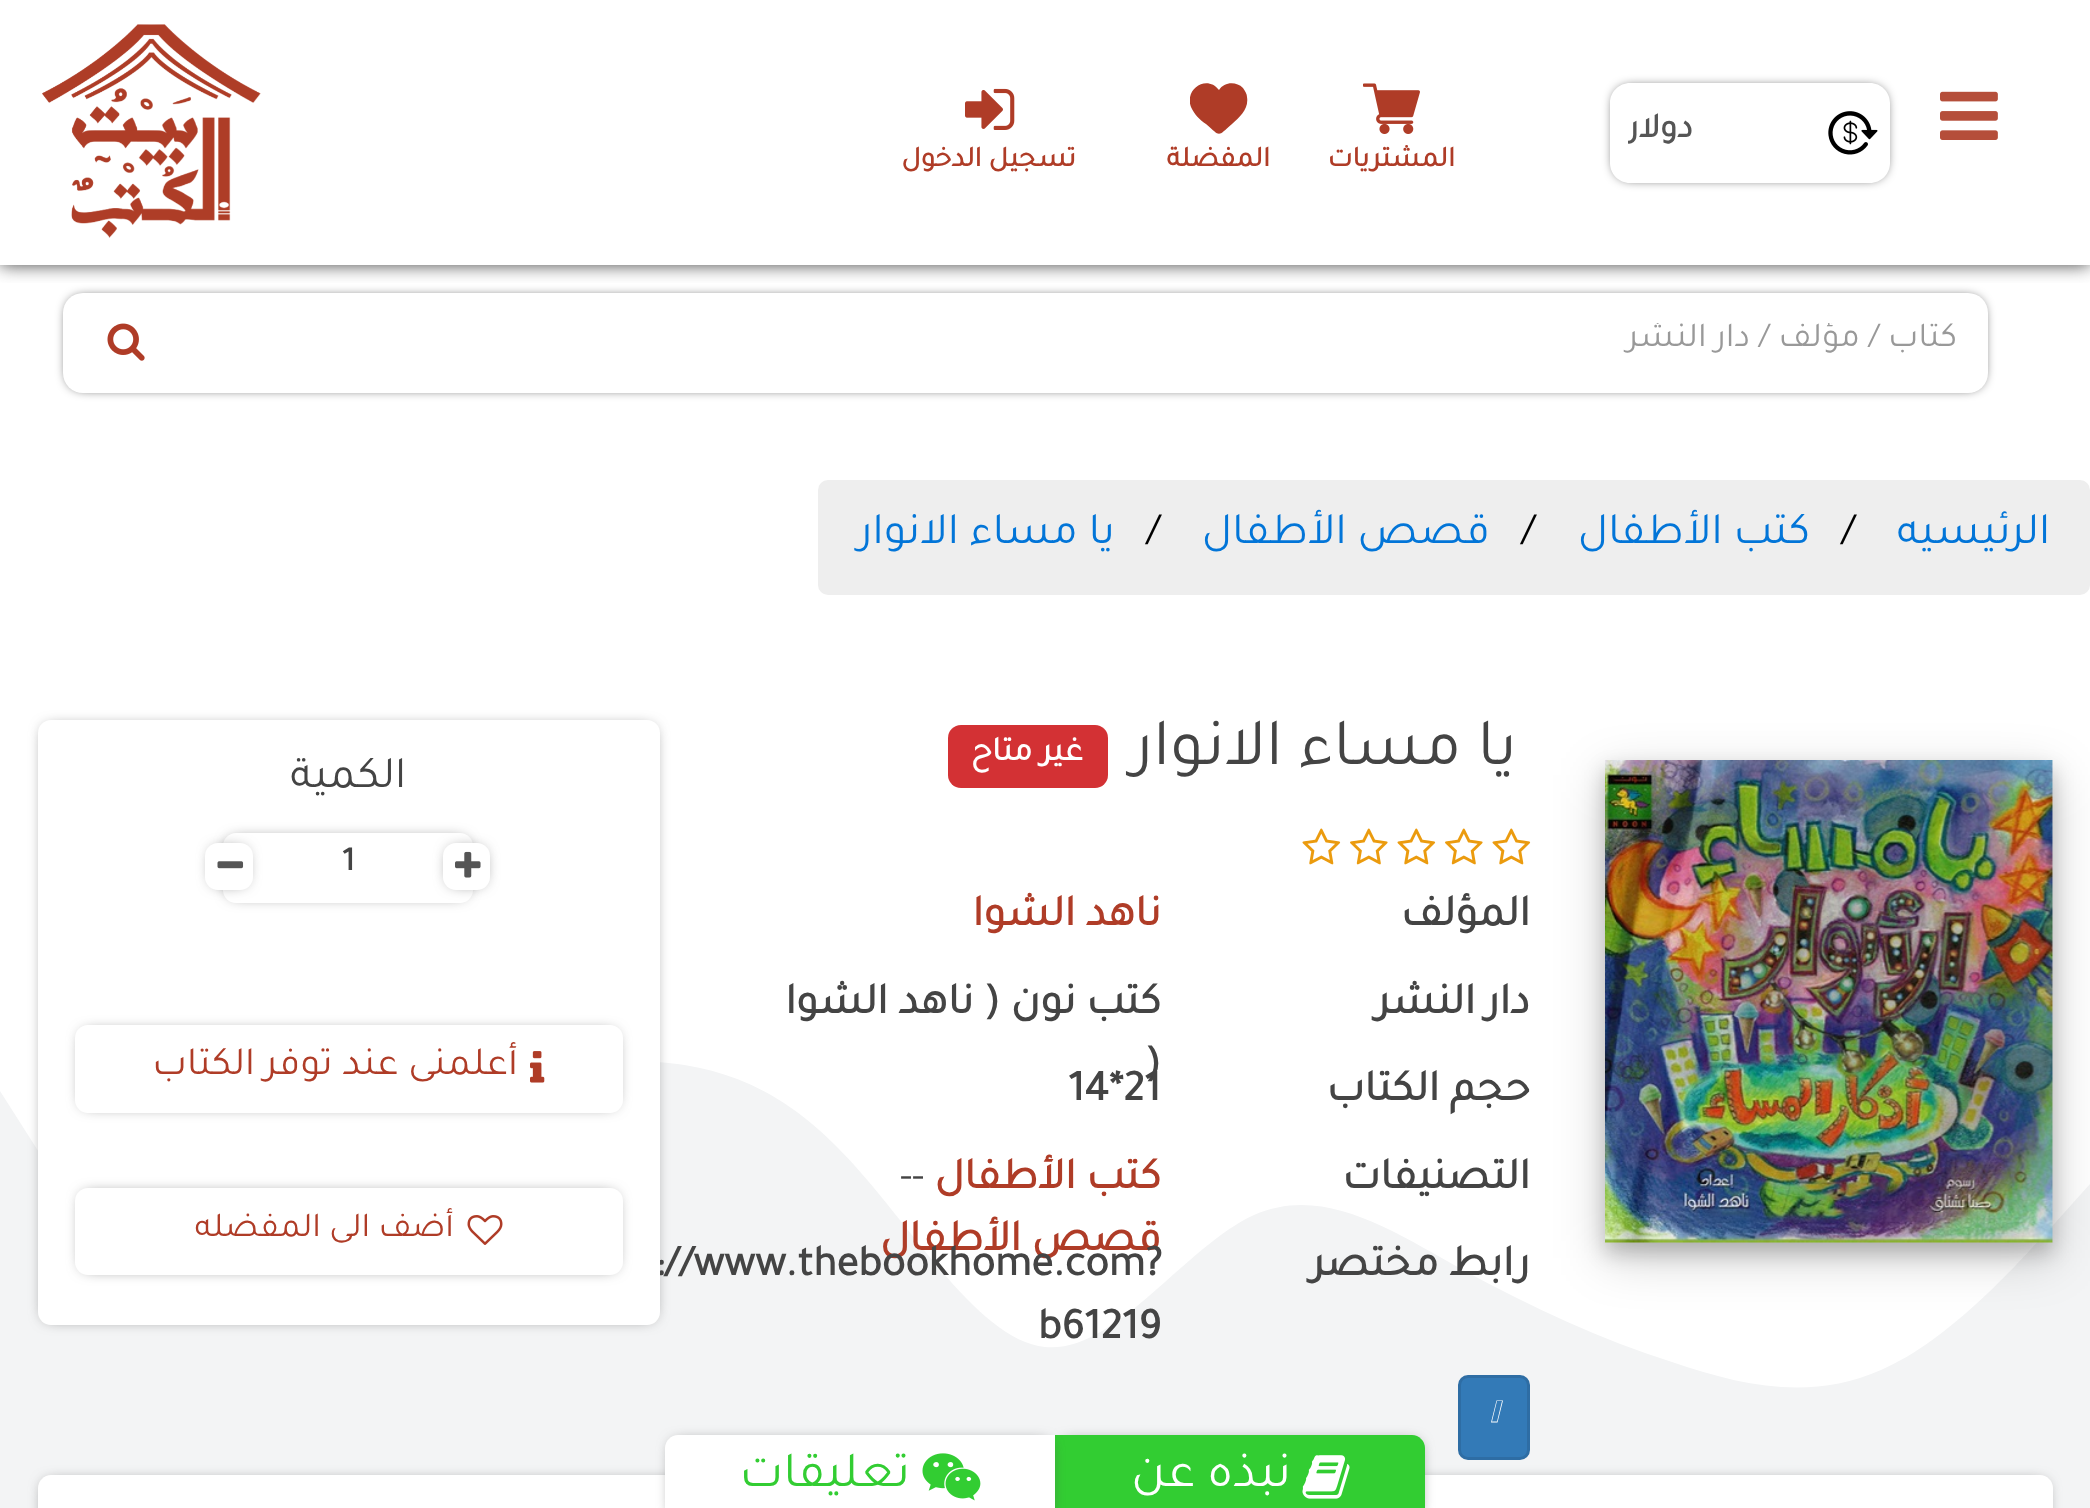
async function draw(canvas) {
  canvas.width = 2090
  canvas.height = 1508
  const ctx = canvas.getContext('2d')
  ctx.miterLimit = 4
  ctx.fontKerning = 'normal'
  async function loadImage(src) {
    const img = new Image()
    img.src = src
    await img.decode()
    return img
  }

  ctx.fillStyle = '#fff'
  ctx.fillRect(0, 0, 2090, 1508)
  ctx.save()
  ctx.beginPath()
  ctx.rect(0, 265, 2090, 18)
  ctx.clip()
  ctx.fillStyle = '#444'
  ctx.filter = 'blur(9px)'
  ctx.beginPath()
  ctx.rect(0, 0, 2090, 265)
  ctx.fill()
  ctx.filter = 'none'
  ctx.restore()
  ctx.drawImage(await loadImage('image0.png'), 1940, 91, 58, 49)
  ctx.drawImage(await loadImage('image1.png'), 1828, 111, 50, 44)
  ctx.save()
  ctx.beginPath()
  ctx.moveTo(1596, 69)
  ctx.lineTo(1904, 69)
  ctx.lineTo(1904, 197)
  ctx.lineTo(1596, 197)
  ctx.closePath()
  ctx.moveTo(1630, 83)
  ctx.lineTo(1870, 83)
  ctx.bezierCurveTo(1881, 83, 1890, 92, 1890, 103)
  ctx.lineTo(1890, 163)
  ctx.bezierCurveTo(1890, 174, 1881, 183, 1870, 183)
  ctx.lineTo(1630, 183)
  ctx.bezierCurveTo(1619, 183, 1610, 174, 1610, 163)
  ctx.lineTo(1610, 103)
  ctx.bezierCurveTo(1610, 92, 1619, 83, 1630, 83)
  ctx.closePath()
  ctx.clip('evenodd')
  ctx.fillStyle = '#000'
  ctx.filter = 'blur(6px)'
  ctx.beginPath()
  ctx.roundRect(1615, 88, 270, 90, 15)
  ctx.fill()
  ctx.filter = 'none'
  ctx.restore()
  ctx.save()
  ctx.beginPath()
  ctx.rect(1628, 108, 250, 50)
  ctx.clip()
  ctx.direction = 'rtl'
  ctx.font = 'bold 35px Tajawal'
  ctx.fillStyle = '#555'
  ctx.fillText('دولار', 1693, 137)
  ctx.restore()
  ctx.drawImage(await loadImage('image2.png'), 1363, 83, 57, 51)
  ctx.direction = 'rtl'
  ctx.font = 'bold 28.75px Tajawal'
  ctx.fillStyle = '#af3c27'
  ctx.fillText('المشتريات', 1455, 166)
  ctx.save()
  ctx.beginPath()
  ctx.rect(1190, 80, 58, 58)
  ctx.clip()
  ctx.beginPath()
  ctx.moveTo(1243, 88)
  ctx.bezierCurveTo(1236, 81, 1224, 82, 1219, 90)
  ctx.bezierCurveTo(1207, 74, 1184, 89, 1191, 107)
  ctx.bezierCurveTo(1194, 114, 1200, 120, 1206, 124)
  ctx.bezierCurveTo(1221, 137, 1217, 137, 1232, 124)
  ctx.bezierCurveTo(1240, 117, 1249, 109, 1247, 97)
  ctx.bezierCurveTo(1247, 94, 1245, 91, 1243, 88)
  ctx.closePath()
  ctx.fill()
  ctx.restore()
  ctx.fillText('المفضلة', 1270, 166)
  ctx.drawImage(await loadImage('image3.png'), 965, 88, 50, 42)
  ctx.fillText('تسجيل الدخول', 1076, 166)
  ctx.fillStyle = '#000'
  ctx.filter = 'blur(6px)'
  ctx.beginPath()
  ctx.roundRect(68, 298, 1915, 90, 15)
  ctx.fill()
  ctx.filter = 'none'
  ctx.fillStyle = '#fff'
  ctx.beginPath()
  ctx.roundRect(63, 293, 1925, 100, 20)
  ctx.fill()
  ctx.save()
  ctx.beginPath()
  ctx.rect(93, 323, 1865, 42)
  ctx.clip()
  ctx.font = '35px Tajawal'
  ctx.fillStyle = '#999'
  ctx.fillText('كتاب / مؤلف / دار النشر', 1957, 346)
  ctx.restore()
  ctx.drawImage(await loadImage('image4.png'), 107, 323, 38, 38)
  ctx.drawImage(await loadImage('image5.png'), 42, 24, 219, 214)
  ctx.fillStyle = '#eee'
  ctx.beginPath()
  ctx.roundRect(818, 480, 1272, 115, 10)
  ctx.fill()
  ctx.font = '45px Tajawal'
  ctx.fillStyle = '#0275d8'
  ctx.fillText('الرئيسيه', 2050, 543)
  ctx.direction = 'ltr'
  ctx.fillStyle = '#000'
  ctx.fillText('/', 1841, 543)
  ctx.direction = 'rtl'
  ctx.fillStyle = '#0275d8'
  ctx.fillText('كتب الأطفال', 1810, 543)
  ctx.direction = 'ltr'
  ctx.fillStyle = '#000'
  ctx.fillText('/', 1521, 543)
  ctx.direction = 'rtl'
  ctx.fillStyle = '#0275d8'
  ctx.fillText('قصص الأطفال', 1490, 543)
  ctx.direction = 'ltr'
  ctx.fillStyle = '#000'
  ctx.fillText('/', 1146, 543)
  ctx.direction = 'rtl'
  ctx.fillStyle = '#0275d8'
  ctx.fillText('يا مساء الانوار', 1115, 543)
  ctx.fillStyle = '#f3f4f5'
  ctx.beginPath()
  ctx.moveTo(0, 1091)
  ctx.lineTo(35, 1146)
  ctx.bezierCurveTo(70, 1200, 139, 1308, 209, 1308)
  ctx.bezierCurveTo(279, 1308, 348, 1200, 418, 1138)
  ctx.bezierCurveTo(488, 1075, 557, 1061, 627, 1061)
  ctx.bezierCurveTo(697, 1061, 766, 1075, 836, 1146)
  ctx.bezierCurveTo(906, 1215, 975, 1340, 1045, 1347)
  ctx.bezierCurveTo(1115, 1354, 1184, 1247, 1254, 1215)
  ctx.bezierCurveTo(1324, 1184, 1393, 1231, 1463, 1270)
  ctx.bezierCurveTo(1533, 1308, 1602, 1340, 1672, 1362)
  ctx.bezierCurveTo(1742, 1386, 1811, 1401, 1881, 1370)
  ctx.bezierCurveTo(1951, 1340, 2020, 1261, 2055, 1223)
  ctx.lineTo(2090, 1184)
  ctx.lineTo(2090, 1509)
  ctx.lineTo(0, 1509)
  ctx.closePath()
  ctx.fill()
  ctx.fillStyle = '#00000030'
  ctx.filter = 'blur(25px)'
  ctx.beginPath()
  ctx.rect(1605, 775, 448, 483)
  ctx.fill()
  ctx.filter = 'none'
  ctx.fillStyle = '#00000033'
  ctx.filter = 'blur(10px)'
  ctx.beginPath()
  ctx.rect(1605, 770, 448, 483)
  ctx.fill()
  ctx.filter = 'none'
  ctx.drawImage(await loadImage('image6.png'), 1605, 760, 448, 483)
  ctx.font = '67.5px Tajawal'
  ctx.fillStyle = '#444'
  ctx.fillText('يا مساء الانوار', 1517, 764)
  ctx.fillStyle = '#d33134'
  ctx.beginPath()
  ctx.roundRect(948, 725, 160, 63, 13)
  ctx.fill()
  ctx.font = 'bold 34px Tajawal'
  ctx.fillStyle = '#fff'
  ctx.fillText('غير متاح', 1083, 760)
  ctx.drawImage(await loadImage('image7.png'), 1492, 828, 39, 37)
  ctx.drawImage(await loadImage('image8.png'), 1445, 828, 38, 37)
  ctx.drawImage(await loadImage('image7.png'), 1397, 828, 39, 37)
  ctx.drawImage(await loadImage('image8.png'), 1350, 828, 38, 37)
  ctx.drawImage(await loadImage('image7.png'), 1302, 828, 39, 37)
  ctx.font = 'bold 43.9px Tajawal'
  ctx.fillStyle = '#444'
  ctx.fillText('المؤلف', 1530, 925)
  ctx.fillStyle = '#af3c27'
  ctx.fillText('ناهد الشوا', 1161, 925)
  ctx.fillStyle = '#444'
  ctx.fillText('دار النشر', 1530, 1013)
  ctx.fillText('كتب نون ( ناهد الشوا', 1161, 1013)
  ctx.direction = 'ltr'
  ctx.fillText(')', 1145, 1075)
  ctx.direction = 'rtl'
  ctx.fillText('حجم الكتاب', 1530, 1100)
  ctx.direction = 'ltr'
  ctx.fillText('14*21', 1068, 1100)
  ctx.direction = 'rtl'
  ctx.fillText('التصنيفات', 1530, 1188)
  ctx.fillStyle = '#af3c27'
  ctx.fillText('كتب الأطفال', 1161, 1188)
  ctx.direction = 'ltr'
  ctx.font = '43.9px Tajawal'
  ctx.fillStyle = '#444'
  ctx.fillText('--', 900, 1188)
  ctx.direction = 'rtl'
  ctx.font = 'bold 43.9px Tajawal'
  ctx.fillStyle = '#af3c27'
  ctx.fillText('قصص الأطفال', 1161, 1250)
  ctx.fillStyle = '#444'
  ctx.fillText('رابط مختصر', 1530, 1275)
  ctx.direction = 'ltr'
  ctx.fillText('://www.thebookhome.com?', 655, 1275)
  ctx.fillText('b61219', 1038, 1338)
  ctx.fillStyle = '#337ab7'
  ctx.beginPath()
  ctx.roundRect(1459.5, 1376.5, 69, 82, 8.5)
  ctx.fill()
  ctx.strokeStyle = '#2e6da4'
  ctx.lineWidth = 3
  ctx.stroke()
  ctx.fillStyle = '#fff'
  ctx.beginPath()
  ctx.moveTo(1491, 1422.5)
  ctx.lineTo(1496.5, 1400.5)
  ctx.lineTo(1503, 1400.5)
  ctx.lineTo(1497.5, 1422.5)
  ctx.closePath()
  ctx.moveTo(1497, 1421.5)
  ctx.lineTo(1502, 1401)
  ctx.lineTo(1497, 1401)
  ctx.lineTo(1492, 1421.5)
  ctx.closePath()
  ctx.fill()
  ctx.fillStyle = '#555'
  ctx.filter = 'blur(7.5px)'
  ctx.beginPath()
  ctx.roundRect(45, 728, 608, 590, 5)
  ctx.fill()
  ctx.filter = 'none'
  ctx.fillStyle = '#fff'
  ctx.beginPath()
  ctx.roundRect(38, 720, 622, 605, 13)
  ctx.fill()
  ctx.direction = 'rtl'
  ctx.font = '45px Tajawal'
  ctx.fillStyle = '#444'
  ctx.fillText('الكمية', 406, 787)
  ctx.fillStyle = '#555'
  ctx.filter = 'blur(7.5px)'
  ctx.beginPath()
  ctx.roundRect(230, 840, 235, 55, 5)
  ctx.fill()
  ctx.filter = 'none'
  ctx.fillStyle = '#fff'
  ctx.beginPath()
  ctx.roundRect(223, 833, 250, 70, 13)
  ctx.fill()
  ctx.fillStyle = '#555'
  ctx.filter = 'blur(7.5px)'
  ctx.beginPath()
  ctx.roundRect(450, 850, 33, 33, 5)
  ctx.fill()
  ctx.filter = 'none'
  ctx.fillStyle = '#fff'
  ctx.beginPath()
  ctx.roundRect(443, 843, 47, 47, 13)
  ctx.fill()
  ctx.drawImage(await loadImage('image9.png'), 455, 851, 26, 27)
  ctx.direction = 'ltr'
  ctx.font = 'bold 34px Tajawal'
  ctx.fillStyle = '#444'
  ctx.fillText('1', 342, 870)
  ctx.fillStyle = '#555'
  ctx.filter = 'blur(7.5px)'
  ctx.beginPath()
  ctx.roundRect(213, 850, 32, 33, 5)
  ctx.fill()
  ctx.filter = 'none'
  ctx.fillStyle = '#fff'
  ctx.beginPath()
  ctx.roundRect(205, 843, 48, 47, 13)
  ctx.fill()
  ctx.drawImage(await loadImage('image10.png'), 217, 861, 27, 8)
  ctx.fillStyle = '#555'
  ctx.filter = 'blur(7.5px)'
  ctx.beginPath()
  ctx.roundRect(83, 1033, 532, 72, 5)
  ctx.fill()
  ctx.filter = 'none'
  ctx.fillStyle = '#fff'
  ctx.beginPath()
  ctx.roundRect(75, 1025, 548, 88, 13)
  ctx.fill()
  ctx.drawImage(await loadImage('image11.png'), 530, 1051, 15, 32)
  ctx.direction = 'rtl'
  ctx.font = '40px Tajawal'
  ctx.fillStyle = '#af3c27'
  ctx.fillText('أعلمنى عند توفر الكتاب', 518, 1074)
  ctx.fillStyle = '#555'
  ctx.filter = 'blur(7.5px)'
  ctx.beginPath()
  ctx.roundRect(83, 1195, 532, 73, 5)
  ctx.fill()
  ctx.filter = 'none'
  ctx.fillStyle = '#fff'
  ctx.beginPath()
  ctx.roundRect(75, 1188, 548, 87, 13)
  ctx.fill()
  ctx.drawImage(await loadImage('image12.png'), 467, 1215, 36, 30)
  ctx.font = '35px Tajawal'
  ctx.fillStyle = '#af3c27'
  ctx.fillText('أضف الى المفضله', 454, 1236)
  ctx.fillStyle = '#555'
  ctx.filter = 'blur(7.5px)'
  ctx.beginPath()
  ctx.roundRect(45, 1483, 2000, 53, 5)
  ctx.fill()
  ctx.filter = 'none'
  ctx.fillStyle = '#fff'
  ctx.beginPath()
  ctx.moveTo(51, 1475)
  ctx.lineTo(2040, 1475)
  ctx.bezierCurveTo(2047, 1475, 2053, 1481, 2053, 1488)
  ctx.lineTo(2053, 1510)
  ctx.lineTo(38, 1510)
  ctx.lineTo(38, 1488)
  ctx.bezierCurveTo(38, 1481, 44, 1475, 51, 1475)
  ctx.closePath()
  ctx.fill()
  ctx.fillStyle = '#555'
  ctx.filter = 'blur(7.5px)'
  ctx.beginPath()
  ctx.roundRect(1063, 1443, 355, 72, 5)
  ctx.fill()
  ctx.filter = 'none'
  ctx.fillStyle = '#32cd32'
  ctx.beginPath()
  ctx.moveTo(1055, 1435)
  ctx.lineTo(1412, 1435)
  ctx.bezierCurveTo(1419, 1435, 1425, 1441, 1425, 1448)
  ctx.lineTo(1425, 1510)
  ctx.lineTo(1055, 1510)
  ctx.closePath()
  ctx.fill()
  ctx.drawImage(await loadImage('image13.png'), 1302, 1455, 48, 44)
  ctx.font = '50.5px Tajawal'
  ctx.fillStyle = '#fff'
  ctx.fillText('نبذه عن', 1291, 1486)
  ctx.fillStyle = '#555'
  ctx.filter = 'blur(7.5px)'
  ctx.beginPath()
  ctx.roundRect(673, 1443, 375, 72, 5)
  ctx.fill()
  ctx.filter = 'none'
  ctx.fillStyle = '#fff'
  ctx.beginPath()
  ctx.moveTo(678, 1435)
  ctx.lineTo(1055, 1435)
  ctx.lineTo(1055, 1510)
  ctx.lineTo(665, 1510)
  ctx.lineTo(665, 1448)
  ctx.bezierCurveTo(665, 1441, 671, 1435, 678, 1435)
  ctx.closePath()
  ctx.fill()
  ctx.drawImage(await loadImage('image14.png'), 922, 1453, 59, 48)
  ctx.fillStyle = '#32cd32'
  ctx.fillText('تعليقات', 910, 1486)
}

draw(document.querySelector('canvas'))
